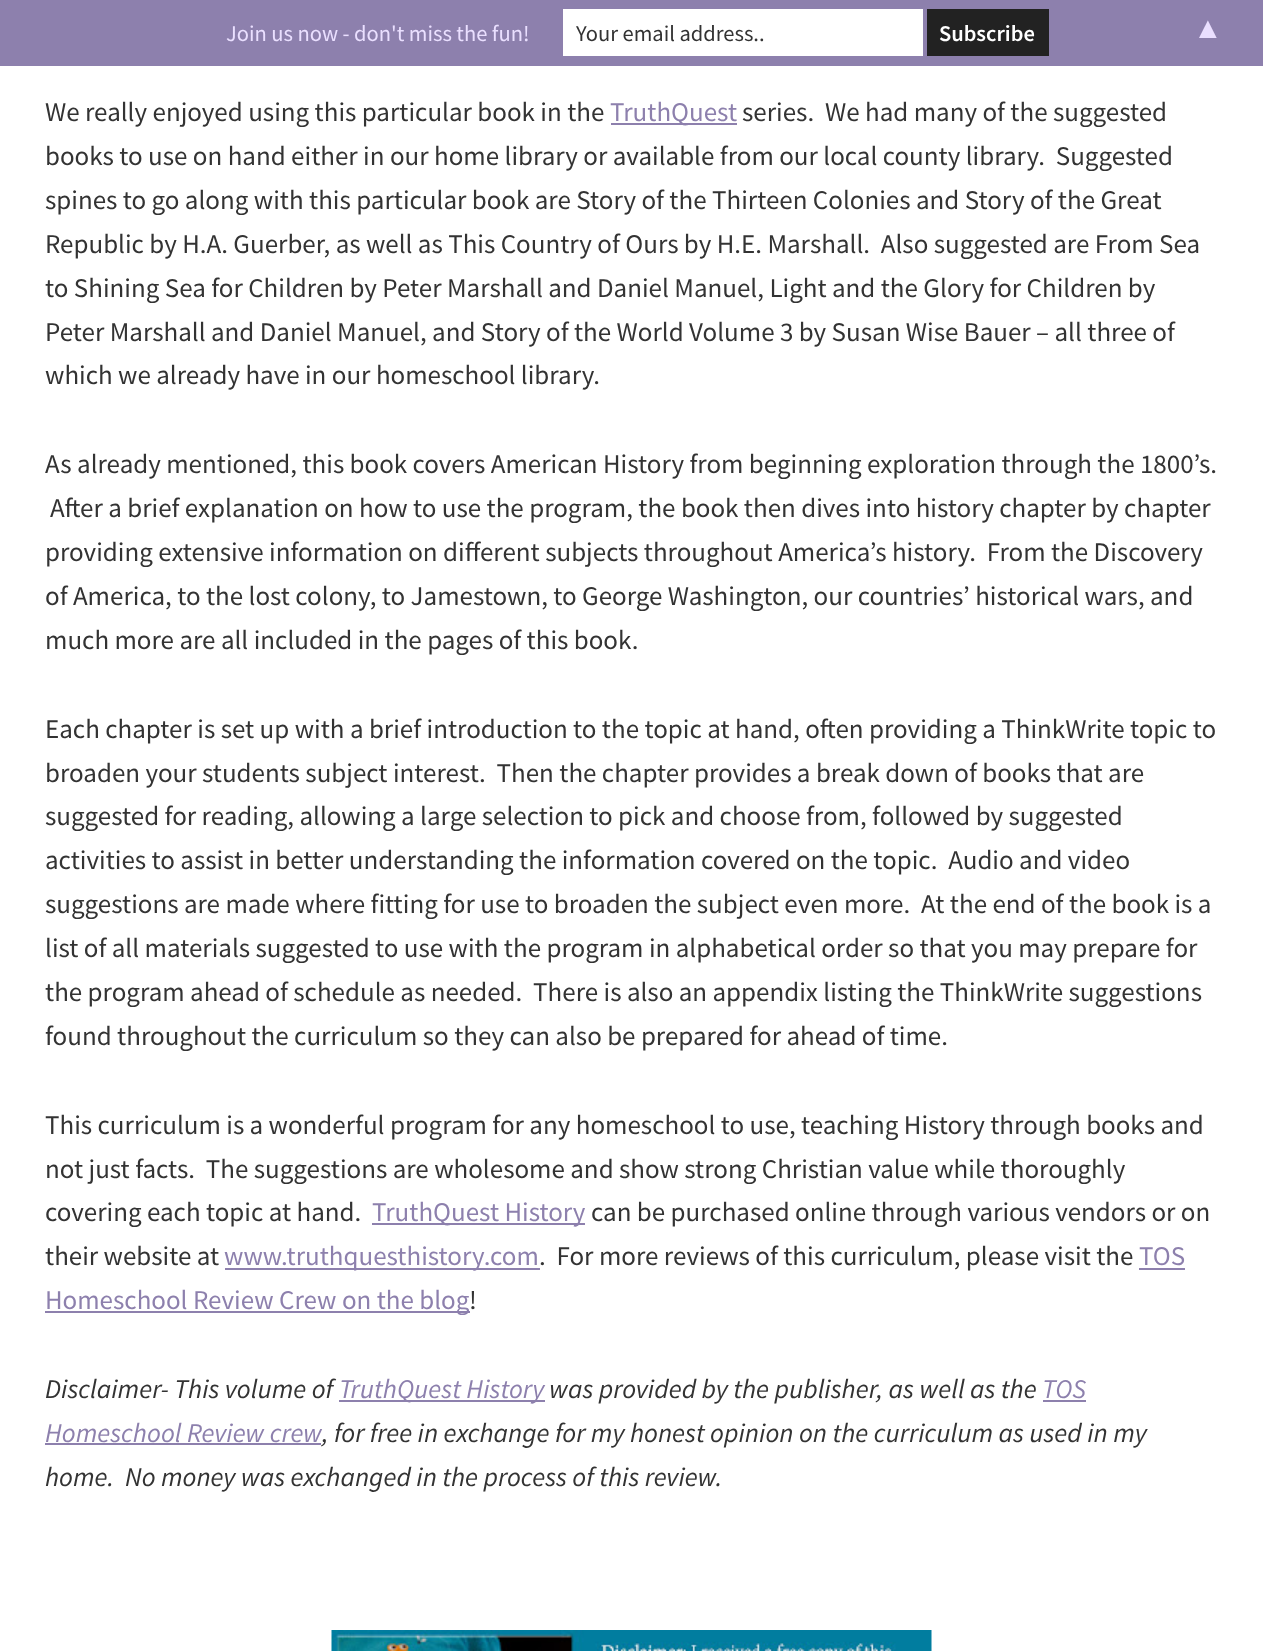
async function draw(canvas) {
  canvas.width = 1263
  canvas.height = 1651
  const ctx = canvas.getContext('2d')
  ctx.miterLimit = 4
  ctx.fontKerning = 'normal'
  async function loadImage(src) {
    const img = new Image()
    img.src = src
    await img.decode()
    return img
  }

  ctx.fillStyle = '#fff'
  ctx.fillRect(0, 0, 1263, 1651)
  ctx.fillStyle = '#8d80ad'
  ctx.fillRect(0, 0, 1263, 66)
  ctx.font = '22.5px Source Sans Pro'
  ctx.fillStyle = '#eadfff'
  ctx.fillText('Join us now - don\'t miss the fun!', 226, 41)
  ctx.fillStyle = '#fff'
  ctx.fillRect(563, 9, 360, 47)
  ctx.fillStyle = '#333'
  ctx.fillText('Your email address..', 576, 41)
  ctx.fillStyle = '#222'
  ctx.fillRect(927, 9, 122, 47)
  ctx.font = '600 22.5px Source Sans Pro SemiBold'
  ctx.fillStyle = '#fff'
  ctx.fillText('Subscribe', 939, 41)
  ctx.font = '30px Liberation Sans'
  ctx.fillStyle = '#eadfff'
  ctx.fillText('▲', 1193, 38)
  ctx.font = '27px Source Sans Pro'
  ctx.fillStyle = '#333'
  ctx.fillText('We really enjoyed using this particular book in the', 45, 121)
  ctx.fillStyle = '#8d80ad'
  ctx.fillRect(611, 123, 126, 2)
  ctx.fillText('TruthQuest', 610, 121)
  ctx.fillStyle = '#333'
  ctx.fillText('series.  We had many of the suggested', 742, 121)
  ctx.fillText('books to use on hand either in our home library or available from our local county library.  Suggested', 45, 165)
  ctx.fillText('spines to go along with this particular book are Story of the Thirteen Colonies and Story of the Great', 45, 209)
  ctx.fillText('Republic by H.A. Guerber, as well as This Country of Ours by H.E. Marshall.  Also suggested are From Sea', 45, 253)
  ctx.fillText('to Shining Sea for Children by Peter Marshall and Daniel Manuel, Light and the Glory for Children by', 45, 297)
  ctx.fillText('Peter Marshall and Daniel Manuel, and Story of the World Volume 3 by Susan Wise Bauer – all three of', 45, 341)
  ctx.fillText('which we already have in our homeschool library.', 45, 384)
  ctx.fillText('As already mentioned, this book covers American History from beginning exploration through the 1800’s.', 45, 473)
  ctx.fillText('After a brief explanation on how to use the program, the book then dives into history chapter by chapter', 50, 517)
  ctx.fillText('providing extensive information on different subjects throughout America’s history.  From the Discovery', 45, 561)
  ctx.fillText('of America, to the lost colony, to Jamestown, to George Washington, our countries’ historical wars, and', 45, 605)
  ctx.fillText('much more are all included in the pages of this book.', 45, 649)
  ctx.fillText('Each chapter is set up with a brief introduction to the topic at hand, often providing a ThinkWrite topic to', 45, 738)
  ctx.fillText('broaden your students subject interest.  Then the chapter provides a break down of books that are', 45, 782)
  ctx.fillText('suggested for reading, allowing a large selection to pick and choose from, followed by suggested', 45, 825)
  ctx.fillText('activities to assist in better understanding the information covered on the topic.  Audio and video', 45, 869)
  ctx.fillText('suggestions are made where fitting for use to broaden the subject even more.  At the end of the book is a', 45, 913)
  ctx.fillText('list of all materials suggested to use with the program in alphabetical order so that you may prepare for', 45, 957)
  ctx.fillText('the program ahead of schedule as needed.  There is also an appendix listing the ThinkWrite suggestions', 45, 1001)
  ctx.fillText('found throughout the curriculum so they can also be prepared for ahead of time.', 45, 1045)
  ctx.fillText('This curriculum is a wonderful program for any homeschool to use, teaching History through books and', 45, 1134)
  ctx.fillText('not just facts.  The suggestions are wholesome and show strong Christian value while thoroughly', 45, 1178)
  ctx.fillText('covering each topic at hand.', 45, 1221)
  ctx.fillStyle = '#8d80ad'
  ctx.fillRect(372, 1223, 213, 2)
  ctx.fillText('TruthQuest History', 372, 1221)
  ctx.fillStyle = '#333'
  ctx.fillText('can be purchased online through various vendors or on', 591, 1221)
  ctx.fillText('their website at', 45, 1265)
  ctx.fillStyle = '#8d80ad'
  ctx.fillRect(225, 1268, 315, 2)
  ctx.fillText('www.truthquesthistory.com', 224, 1265)
  ctx.fillStyle = '#333'
  ctx.fillText('.  For more reviews of this curriculum, please visit the', 539, 1265)
  ctx.fillStyle = '#8d80ad'
  ctx.fillText('TOS', 1139, 1265)
  ctx.fillRect(1139, 1268, 46, 2)
  ctx.fillRect(45, 1311, 425, 2)
  ctx.fillText('Homeschool Review Crew on the blog', 45, 1309)
  ctx.fillStyle = '#333'
  ctx.fillText('!', 469, 1309)
  ctx.font = 'italic 27px Source Sans Pro'
  ctx.fillText('Disclaimer- This volume of', 45, 1398)
  ctx.fillStyle = '#8d80ad'
  ctx.fillRect(339, 1400, 206, 2)
  ctx.fillText('TruthQuest History', 339, 1398)
  ctx.fillStyle = '#333'
  ctx.fillText('was provided by the publisher, as well as the', 549, 1398)
  ctx.fillStyle = '#8d80ad'
  ctx.fillText('TOS', 1042, 1398)
  ctx.fillRect(1043, 1400, 43, 2)
  ctx.fillText('Homeschool Review crew', 45, 1442)
  ctx.fillRect(45, 1443, 276, 2)
  ctx.fillStyle = '#333'
  ctx.fillText(', for free in exchange for my honest opinion on the curriculum as used in my', 322, 1442)
  ctx.fillText('home.  No money was exchanged in the process of this review.', 45, 1486)
  ctx.drawImage(await loadImage('image0.png'), 331, 1630, 601, 21)
}

draw(document.querySelector('canvas'))
